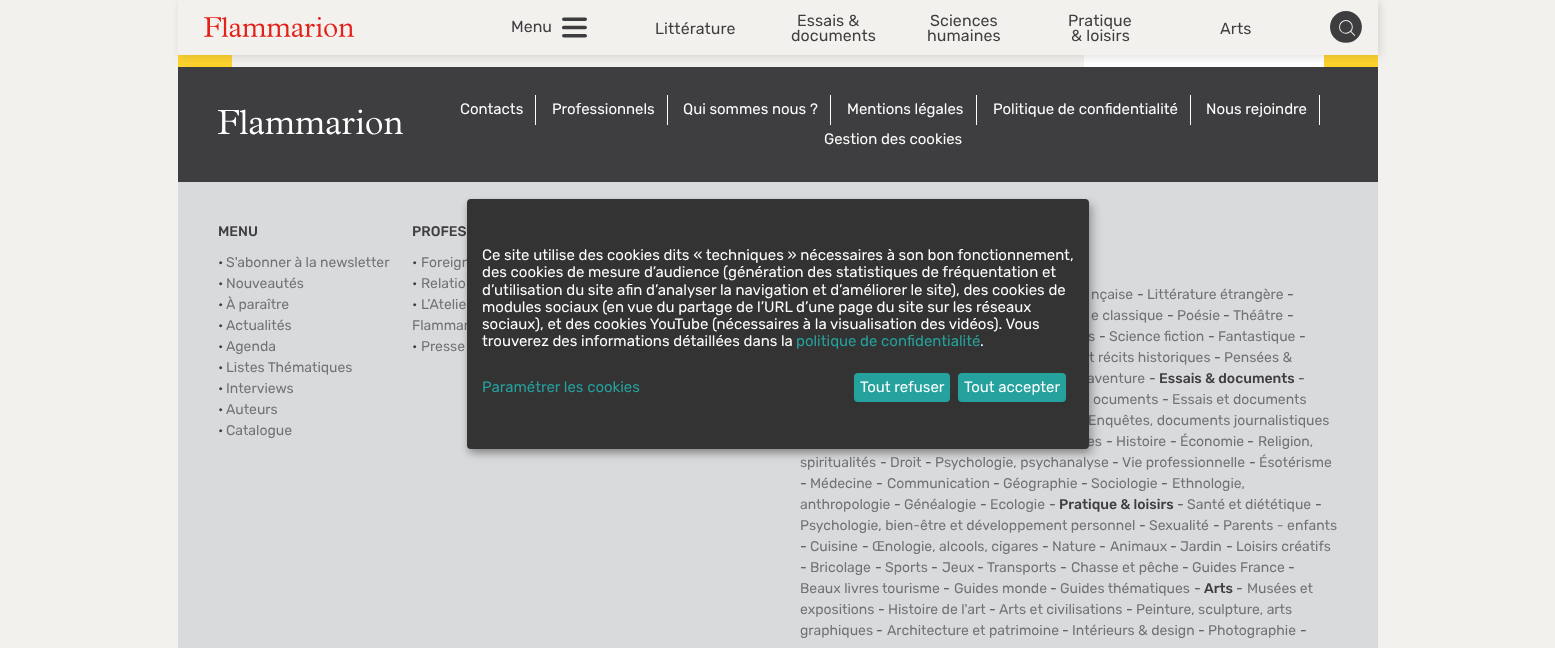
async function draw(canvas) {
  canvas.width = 1555
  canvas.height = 648
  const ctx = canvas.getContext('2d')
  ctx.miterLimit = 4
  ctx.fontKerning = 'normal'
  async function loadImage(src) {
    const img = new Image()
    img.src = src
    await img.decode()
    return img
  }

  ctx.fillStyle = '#f3f1ee'
  ctx.fillRect(0, 0, 1555, 648)
  ctx.fillStyle = '#fdd22d'
  ctx.fillRect(178, 55, 1200, 12)
  ctx.fillStyle = '#f3f1ee'
  ctx.fillRect(232, 55, 852, 12)
  ctx.fillStyle = '#fff'
  ctx.fillRect(1084, 55, 240, 12)
  ctx.fillStyle = '#3e3d40'
  ctx.fillRect(178, 67, 1200, 115)
  ctx.fillStyle = '#3e3d4029'
  ctx.filter = 'blur(4px)'
  ctx.beginPath()
  ctx.rect(180, 2, 1200, 55)
  ctx.fill()
  ctx.filter = 'none'
  ctx.fillStyle = '#f3f1ee'
  ctx.fillRect(178, 0, 1200, 55)
  ctx.drawImage(await loadImage('image0.png'), 204, 17, 150, 20)
  ctx.font = '16px Rubik'
  ctx.fillStyle = '#3e3d40'
  ctx.fillText('Menu', 511, 32)
  ctx.drawImage(await loadImage('image1.png'), 562, 17, 25, 21)
  ctx.letterSpacing = '0.1px'
  ctx.fillText('Littérature', 655, 34)
  ctx.fillText('Essais &', 797, 26)
  ctx.fillText('documents', 791, 41)
  ctx.fillText('Sciences', 930, 26)
  ctx.fillText('humaines', 927, 41)
  ctx.fillText('Pratique', 1068, 26)
  ctx.fillText('& loisirs', 1071, 41)
  ctx.fillText('Arts', 1220, 34)
  ctx.drawImage(await loadImage('image2.png'), 1330, 11, 32, 32)
  ctx.drawImage(await loadImage('image3.png'), 218, 109, 185, 26)
  ctx.fillStyle = '#fff'
  ctx.fillRect(535, 95, 1, 30)
  ctx.letterSpacing = '0px'
  ctx.font = '15px Rubik'
  ctx.fillText('Contacts', 460, 114)
  ctx.fillRect(667, 95, 1, 30)
  ctx.fillText('Professionnels', 552, 114)
  ctx.fillRect(830, 95, 1, 30)
  ctx.fillText('Qui sommes nous ?', 683, 114)
  ctx.fillRect(976, 95, 1, 30)
  ctx.fillText('Mentions légales', 847, 114)
  ctx.fillRect(1190, 95, 1, 30)
  ctx.fillText('Politique de confidentialité', 993, 114)
  ctx.fillRect(1319, 95, 1, 30)
  ctx.fillText('Nous rejoindre', 1206, 114)
  ctx.fillText('Gestion des cookies', 824, 144)
  ctx.fillStyle = '#d9dadb'
  ctx.fillRect(178, 182, 1200, 466)
  ctx.font = '500 14px Rubik'
  ctx.fillStyle = '#3e3d40'
  ctx.fillText('MENU', 218, 236)
  ctx.font = '14px Rubik'
  ctx.fillText('•', 218, 267)
  ctx.fillStyle = '#707173'
  ctx.fillText('S\'abonner à la newsletter', 226, 267)
  ctx.fillStyle = '#3e3d40'
  ctx.fillText('•', 218, 288)
  ctx.fillStyle = '#707173'
  ctx.fillText('Nouveautés', 226, 288)
  ctx.fillStyle = '#3e3d40'
  ctx.fillText('•', 218, 309)
  ctx.fillStyle = '#707173'
  ctx.fillText('À paraître', 226, 309)
  ctx.fillStyle = '#3e3d40'
  ctx.fillText('•', 218, 330)
  ctx.fillStyle = '#707173'
  ctx.fillText('Actualités', 226, 330)
  ctx.fillStyle = '#3e3d40'
  ctx.fillText('•', 218, 351)
  ctx.fillStyle = '#707173'
  ctx.fillText('Agenda', 226, 351)
  ctx.fillStyle = '#3e3d40'
  ctx.fillText('•', 218, 372)
  ctx.fillStyle = '#707173'
  ctx.fillText('Listes Thématiques', 226, 372)
  ctx.fillStyle = '#3e3d40'
  ctx.fillText('•', 218, 393)
  ctx.fillStyle = '#707173'
  ctx.fillText('Interviews', 226, 393)
  ctx.fillStyle = '#3e3d40'
  ctx.fillText('•', 218, 414)
  ctx.fillStyle = '#707173'
  ctx.fillText('Auteurs', 226, 414)
  ctx.fillStyle = '#3e3d40'
  ctx.fillText('•', 218, 435)
  ctx.fillStyle = '#707173'
  ctx.fillText('Catalogue', 226, 435)
  ctx.font = '500 14px Rubik'
  ctx.fillStyle = '#3e3d40'
  ctx.fillText('PROFES', 412, 236)
  ctx.font = '14px Rubik'
  ctx.fillText('•', 412, 267)
  ctx.fillStyle = '#707173'
  ctx.fillText('Foreign', 421, 267)
  ctx.fillStyle = '#3e3d40'
  ctx.fillText('•', 412, 288)
  ctx.fillStyle = '#707173'
  ctx.fillText('Relatio', 421, 288)
  ctx.fillStyle = '#3e3d40'
  ctx.fillText('•', 412, 309)
  ctx.fillStyle = '#707173'
  ctx.fillText('L’Atelie', 421, 309)
  ctx.fillText('Flammar', 412, 330)
  ctx.fillStyle = '#3e3d40'
  ctx.fillText('•', 412, 351)
  ctx.fillStyle = '#707173'
  ctx.fillText('Presse', 421, 351)
  ctx.fillText('nçaise', 1091, 299)
  ctx.fillStyle = '#3e3d40'
  ctx.fillText('-', 1137, 299)
  ctx.fillStyle = '#707173'
  ctx.fillText('Littérature étrangère', 1147, 299)
  ctx.fillStyle = '#3e3d40'
  ctx.fillText('-', 1287, 299)
  ctx.fillStyle = '#707173'
  ctx.fillText('e classique', 1091, 320)
  ctx.fillStyle = '#3e3d40'
  ctx.fillText('-', 1167, 320)
  ctx.fillStyle = '#707173'
  ctx.fillText('Poésie', 1177, 320)
  ctx.fillStyle = '#3e3d40'
  ctx.fillText('-', 1223, 320)
  ctx.fillStyle = '#707173'
  ctx.fillText('Théâtre', 1233, 320)
  ctx.fillStyle = '#3e3d40'
  ctx.fillText('-', 1287, 320)
  ctx.fillStyle = '#707173'
  ctx.fillText('s', 1088, 341)
  ctx.fillStyle = '#3e3d40'
  ctx.fillText('-', 1099, 341)
  ctx.fillStyle = '#707173'
  ctx.fillText('Science fiction', 1109, 341)
  ctx.fillStyle = '#3e3d40'
  ctx.fillText('-', 1208, 341)
  ctx.fillStyle = '#707173'
  ctx.fillText('Fantastique', 1218, 341)
  ctx.fillStyle = '#3e3d40'
  ctx.fillText('-', 1299, 341)
  ctx.fillStyle = '#707173'
  ctx.fillText('t récits historiques', 1089, 362)
  ctx.fillStyle = '#3e3d40'
  ctx.fillText('-', 1214, 362)
  ctx.fillStyle = '#707173'
  ctx.fillText('Pensées &', 1224, 362)
  ctx.fillText('aventure', 1087, 383)
  ctx.fillStyle = '#3e3d40'
  ctx.fillText('-', 1149, 383)
  ctx.font = '500 14px Rubik'
  ctx.fillText('Essais & documents', 1159, 383)
  ctx.font = '14px Rubik'
  ctx.fillText('-', 1298, 383)
  ctx.fillStyle = '#707173'
  ctx.fillText('ocuments', 1093, 404)
  ctx.fillStyle = '#3e3d40'
  ctx.fillText('-', 1162, 404)
  ctx.fillStyle = '#707173'
  ctx.fillText('Essais et documents', 1172, 404)
  ctx.fillText('Enquêtes, documents journalistiques', 1088, 425)
  ctx.fillText('es', 1087, 446)
  ctx.fillStyle = '#3e3d40'
  ctx.fillText('-', 1106, 446)
  ctx.fillStyle = '#707173'
  ctx.fillText('Histoire', 1116, 446)
  ctx.fillStyle = '#3e3d40'
  ctx.fillText('-', 1170, 446)
  ctx.fillStyle = '#707173'
  ctx.fillText('Économie', 1180, 446)
  ctx.fillStyle = '#3e3d40'
  ctx.fillText('-', 1247, 446)
  ctx.fillStyle = '#707173'
  ctx.fillText('Religion,', 1258, 446)
  ctx.fillText('spiritualités', 800, 467)
  ctx.fillStyle = '#3e3d40'
  ctx.fillText('-', 880, 467)
  ctx.fillStyle = '#707173'
  ctx.fillText('Droit', 890, 467)
  ctx.fillStyle = '#3e3d40'
  ctx.fillText('-', 925, 467)
  ctx.fillStyle = '#707173'
  ctx.fillText('Psychologie, psychanalyse', 935, 467)
  ctx.fillStyle = '#3e3d40'
  ctx.fillText('-', 1112, 467)
  ctx.fillStyle = '#707173'
  ctx.fillText('Vie professionnelle', 1122, 467)
  ctx.fillStyle = '#3e3d40'
  ctx.fillText('-', 1249, 467)
  ctx.fillStyle = '#707173'
  ctx.fillText('Ésotérisme', 1259, 467)
  ctx.fillStyle = '#3e3d40'
  ctx.fillText('-', 800, 488)
  ctx.fillStyle = '#707173'
  ctx.fillText('Médecine', 810, 488)
  ctx.fillStyle = '#3e3d40'
  ctx.fillText('-', 876, 488)
  ctx.fillStyle = '#707173'
  ctx.fillText('Communication', 887, 488)
  ctx.fillStyle = '#3e3d40'
  ctx.fillText('-', 993, 488)
  ctx.fillStyle = '#707173'
  ctx.fillText('Géographie', 1003, 488)
  ctx.fillStyle = '#3e3d40'
  ctx.fillText('-', 1081, 488)
  ctx.fillStyle = '#707173'
  ctx.fillText('Sociologie', 1091, 488)
  ctx.fillStyle = '#3e3d40'
  ctx.fillText('-', 1161, 488)
  ctx.fillStyle = '#707173'
  ctx.fillText('Ethnologie,', 1172, 488)
  ctx.fillText('anthropologie', 800, 509)
  ctx.fillStyle = '#3e3d40'
  ctx.fillText('-', 894, 509)
  ctx.fillStyle = '#707173'
  ctx.fillText('Généalogie', 904, 509)
  ctx.fillStyle = '#3e3d40'
  ctx.fillText('-', 980, 509)
  ctx.fillStyle = '#707173'
  ctx.fillText('Ecologie', 990, 509)
  ctx.fillStyle = '#3e3d40'
  ctx.fillText('-', 1049, 509)
  ctx.font = '500 14px Rubik'
  ctx.fillText('Pratique & loisirs', 1059, 509)
  ctx.font = '14px Rubik'
  ctx.fillText('-', 1177, 509)
  ctx.fillStyle = '#707173'
  ctx.fillText('Santé et diététique', 1187, 509)
  ctx.fillStyle = '#3e3d40'
  ctx.fillText('-', 1315, 509)
  ctx.fillStyle = '#707173'
  ctx.fillText('Psychologie, bien-être et développement personnel', 800, 530)
  ctx.fillStyle = '#3e3d40'
  ctx.fillText('-', 1139, 530)
  ctx.fillStyle = '#707173'
  ctx.fillText('Sexualité', 1149, 530)
  ctx.fillStyle = '#3e3d40'
  ctx.fillText('-', 1213, 530)
  ctx.fillStyle = '#707173'
  ctx.fillText('Parents - enfants', 1223, 530)
  ctx.fillStyle = '#3e3d40'
  ctx.fillText('-', 800, 551)
  ctx.fillStyle = '#707173'
  ctx.fillText('Cuisine', 810, 551)
  ctx.fillStyle = '#3e3d40'
  ctx.fillText('-', 862, 551)
  ctx.fillStyle = '#707173'
  ctx.fillText('Œnologie, alcools, cigares', 872, 551)
  ctx.fillStyle = '#3e3d40'
  ctx.fillText('-', 1042, 551)
  ctx.fillStyle = '#707173'
  ctx.fillText('Nature', 1052, 551)
  ctx.fillStyle = '#3e3d40'
  ctx.fillText('-', 1099, 551)
  ctx.fillStyle = '#707173'
  ctx.fillText('Animaux', 1110, 551)
  ctx.fillStyle = '#3e3d40'
  ctx.fillText('-', 1170, 551)
  ctx.fillStyle = '#707173'
  ctx.fillText('Jardin', 1180, 551)
  ctx.fillStyle = '#3e3d40'
  ctx.fillText('-', 1226, 551)
  ctx.fillStyle = '#707173'
  ctx.fillText('Loisirs créatifs', 1236, 551)
  ctx.fillStyle = '#3e3d40'
  ctx.fillText('-', 800, 572)
  ctx.fillStyle = '#707173'
  ctx.fillText('Bricolage', 810, 572)
  ctx.fillStyle = '#3e3d40'
  ctx.fillText('-', 875, 572)
  ctx.fillStyle = '#707173'
  ctx.fillText('Sports', 885, 572)
  ctx.fillStyle = '#3e3d40'
  ctx.fillText('-', 931, 572)
  ctx.fillStyle = '#707173'
  ctx.fillText('Jeux', 942, 572)
  ctx.fillStyle = '#3e3d40'
  ctx.fillText('-', 977, 572)
  ctx.fillStyle = '#707173'
  ctx.fillText('Transports', 987, 572)
  ctx.fillStyle = '#3e3d40'
  ctx.fillText('-', 1060, 572)
  ctx.fillStyle = '#707173'
  ctx.fillText('Chasse et pêche', 1071, 572)
  ctx.fillStyle = '#3e3d40'
  ctx.fillText('-', 1182, 572)
  ctx.fillStyle = '#707173'
  ctx.fillText('Guides France', 1192, 572)
  ctx.fillStyle = '#3e3d40'
  ctx.fillText('-', 1288, 572)
  ctx.fillStyle = '#707173'
  ctx.fillText('Beaux livres tourisme', 800, 593)
  ctx.fillStyle = '#3e3d40'
  ctx.fillText('-', 943, 593)
  ctx.fillStyle = '#707173'
  ctx.fillText('Guides monde', 954, 593)
  ctx.fillStyle = '#3e3d40'
  ctx.fillText('-', 1050, 593)
  ctx.fillStyle = '#707173'
  ctx.fillText('Guides thématiques', 1060, 593)
  ctx.fillStyle = '#3e3d40'
  ctx.fillText('-', 1194, 593)
  ctx.font = '500 14px Rubik'
  ctx.fillText('Arts', 1204, 593)
  ctx.font = '14px Rubik'
  ctx.fillText('-', 1236, 593)
  ctx.fillStyle = '#707173'
  ctx.fillText('Musées et', 1247, 593)
  ctx.fillText('expositions', 800, 614)
  ctx.fillStyle = '#3e3d40'
  ctx.fillText('-', 878, 614)
  ctx.fillStyle = '#707173'
  ctx.fillText('Histoire de l\'art', 888, 614)
  ctx.fillStyle = '#3e3d40'
  ctx.fillText('-', 989, 614)
  ctx.fillStyle = '#707173'
  ctx.fillText('Arts et civilisations', 999, 614)
  ctx.fillStyle = '#3e3d40'
  ctx.fillText('-', 1126, 614)
  ctx.fillStyle = '#707173'
  ctx.fillText('Peinture, sculpture, arts', 1136, 614)
  ctx.fillText('graphiques', 800, 635)
  ctx.fillStyle = '#3e3d40'
  ctx.fillText('-', 876, 635)
  ctx.fillStyle = '#707173'
  ctx.fillText('Architecture et patrimoine', 887, 635)
  ctx.fillStyle = '#3e3d40'
  ctx.fillText('-', 1062, 635)
  ctx.fillStyle = '#707173'
  ctx.fillText('Intérieurs & design', 1072, 635)
  ctx.fillStyle = '#3e3d40'
  ctx.fillText('-', 1198, 635)
  ctx.fillStyle = '#707173'
  ctx.fillText('Photographie', 1208, 635)
  ctx.fillStyle = '#3e3d40'
  ctx.fillText('-', 1300, 635)
  ctx.fillStyle = '#00000030'
  ctx.filter = 'blur(5px)'
  ctx.beginPath()
  ctx.roundRect(472, 204, 622, 250, 4)
  ctx.fill()
  ctx.filter = 'none'
  ctx.fillStyle = '#00000033'
  ctx.filter = 'blur(3px)'
  ctx.beginPath()
  ctx.roundRect(467, 203, 622, 250, 4)
  ctx.fill()
  ctx.filter = 'none'
  ctx.fillStyle = '#333'
  ctx.beginPath()
  ctx.roundRect(467, 199, 622, 250, 4)
  ctx.fill()
  ctx.font = '15px Rubik'
  ctx.fillStyle = '#fff'
  ctx.fillText('Ce site utilise des cookies dits « techniques » nécessaires à son bon fonctionnement,', 482, 260)
  ctx.fillText('des cookies de mesure d’audience (génération des statistiques de fréquentation et', 482, 277)
  ctx.fillText('d’utilisation du site afin d’analyser la navigation et d’améliorer le site), des cookies de', 482, 295)
  ctx.fillText('modules sociaux (en vue du partage de l’URL d’une page du site sur les réseaux', 482, 312)
  ctx.fillText('sociaux), et des cookies YouTube (nécessaires à la visualisation des vidéos). Vous', 482, 329)
  ctx.fillText('trouverez des informations détaillées dans la', 482, 346)
  ctx.fillStyle = '#25a29e'
  ctx.fillText('politique de confidentialité', 796, 346)
  ctx.fillStyle = '#fff'
  ctx.fillText('.', 980, 346)
  ctx.fillStyle = '#25a29e'
  ctx.fillText('Paramétrer les cookies', 482, 392)
  ctx.beginPath()
  ctx.roundRect(854, 373, 96, 29, 4)
  ctx.fill()
  ctx.fillStyle = '#fff'
  ctx.fillText('Tout refuser', 860, 392)
  ctx.fillStyle = '#25a29e'
  ctx.beginPath()
  ctx.roundRect(958, 373, 108, 29, 4)
  ctx.fill()
  ctx.fillStyle = '#fff'
  ctx.fillText('Tout accepter', 964, 392)
}

draw(document.querySelector('canvas'))
